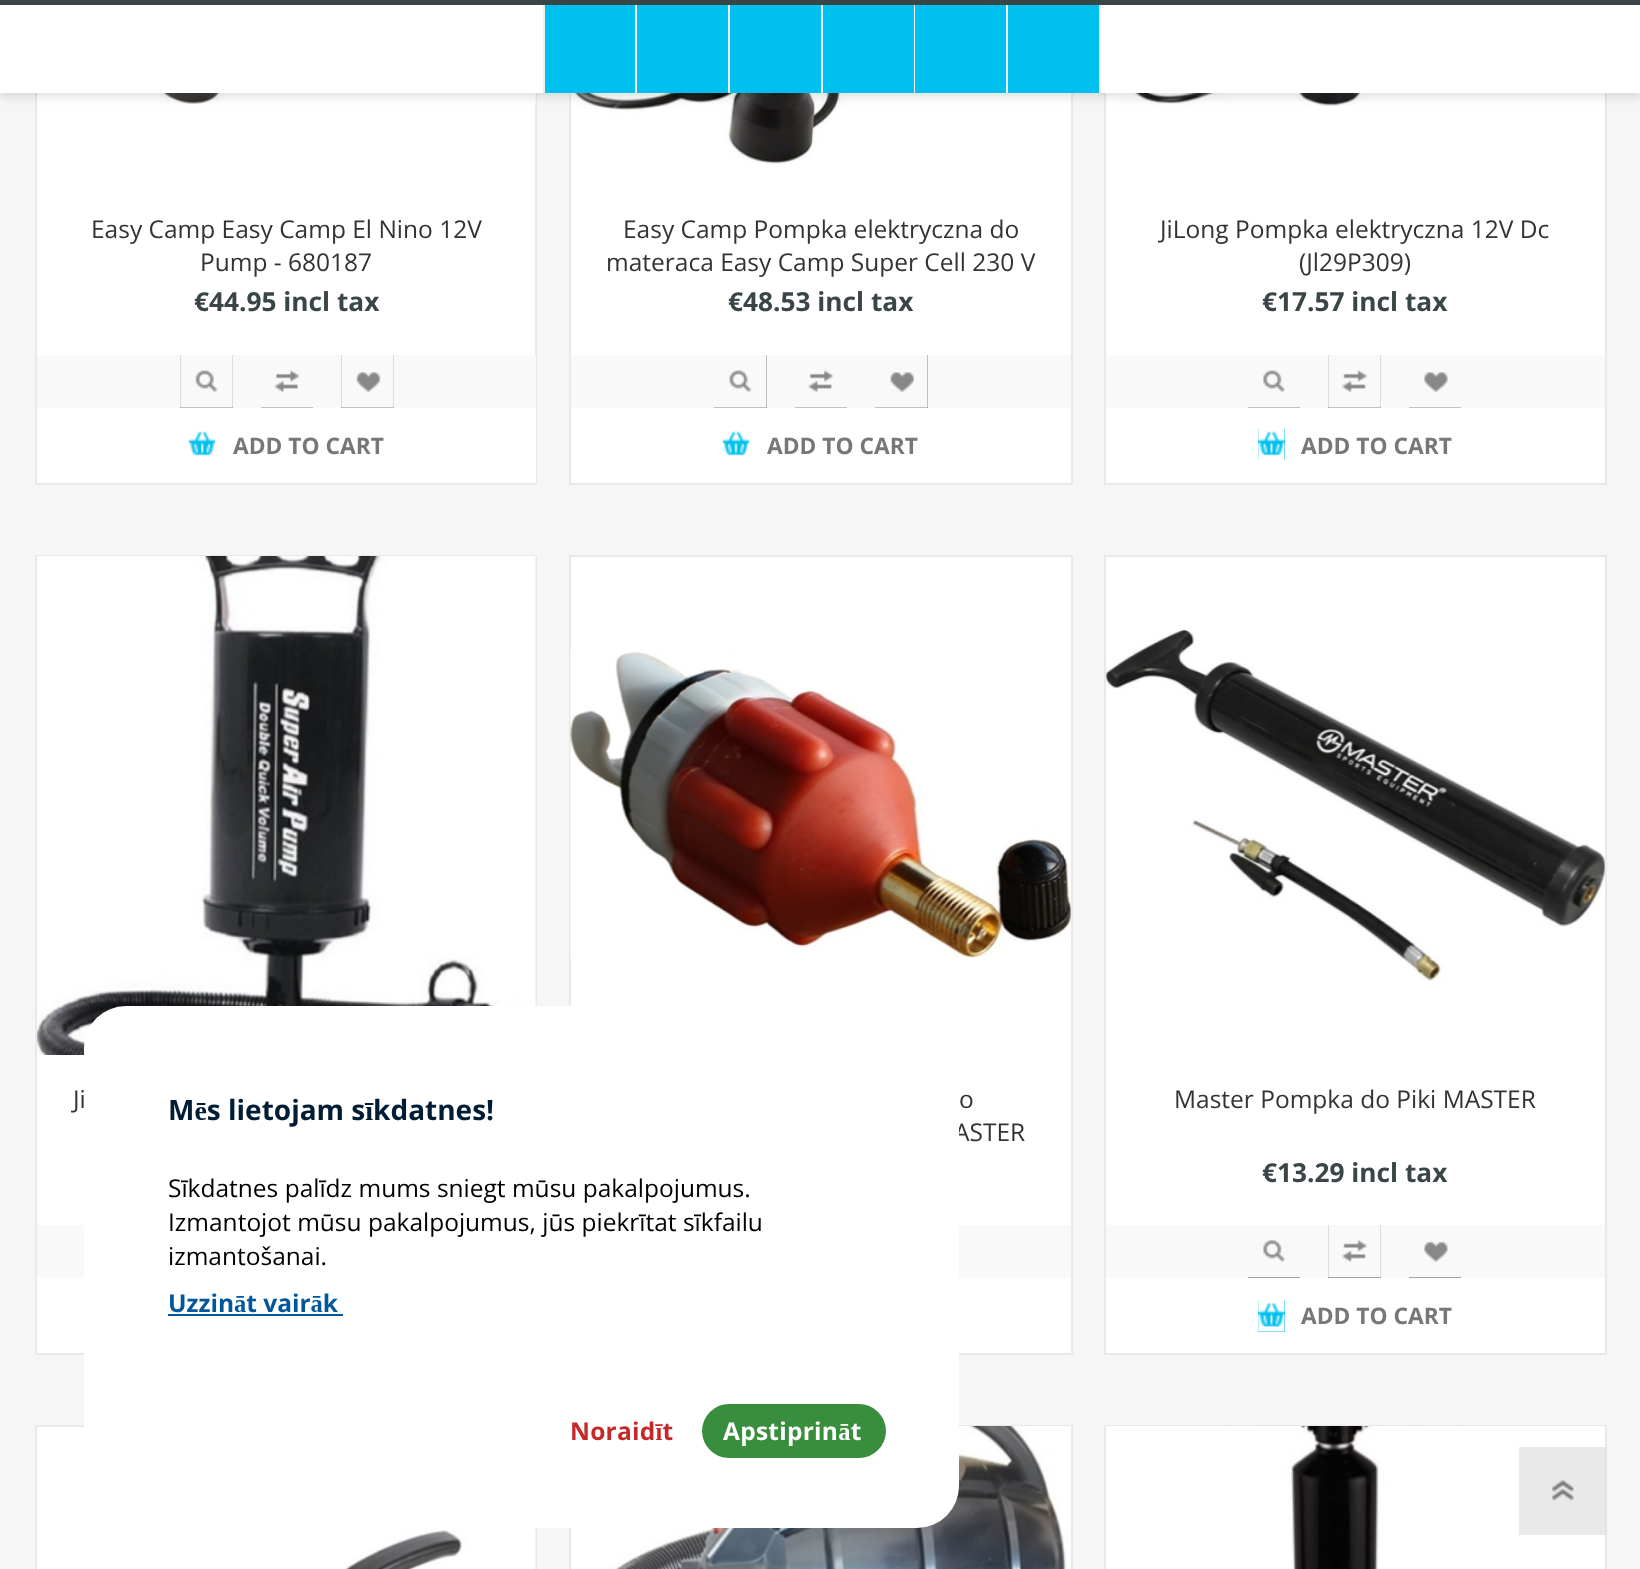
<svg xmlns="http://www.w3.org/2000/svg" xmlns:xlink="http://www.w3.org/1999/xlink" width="1640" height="1569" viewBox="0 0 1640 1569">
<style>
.cls-1{font:24.5px Open Sans;fill:#333333}
.cls-2{font:bold 26.25px Open Sans;fill:#3a4547}
.cls-3{font:bold 22.75px Open Sans;fill:#777777}
.cls-4{font:bold 28px Open Sans;fill:#001d35}
.cls-5{font:24.5px Open Sans;fill:#000000}
.cls-6{font:bold 24.5px Open Sans;fill:#01579b}
.cls-7{font:bold 24.5px Open Sans;letter-spacing:0.25px;fill:#c62828}
.cls-8{font:bold 24.5px Open Sans;letter-spacing:0.25px;fill:#ffffff}
</style>
<rect width="100%" height="100%" fill="#f6f6f6"/>
<rect fill="#ffffff" x="37" y="93" width="498" height="262"/>
<rect fill="none" stroke="#e9e9e9" stroke-width="2" x="36" y="-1" width="500" height="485"/>
<image xlink:href="image0.png" x="37" y="93" width="499" height="11"/>
<rect fill="#ffffff" x="571" y="93" width="500" height="390"/>
<rect fill="none" stroke="#e9e9e9" stroke-width="2" x="570" y="-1" width="502" height="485"/>
<image xlink:href="image5.png" x="571" y="93" width="345" height="71"/>
<rect fill="#ffffff" x="1106" y="93" width="499" height="390"/>
<rect fill="none" stroke="#e9e9e9" stroke-width="2" x="1105" y="-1" width="501" height="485"/>
<image xlink:href="image10.png" x="1106" y="93" width="472" height="13"/>
<rect fill="#000000" fill-opacity="0.1" filter="blur(4.5px)" x="0" y="5" width="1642" height="93"/>
<rect fill="#ffffff" x="0" y="5" width="1640" height="88"/>
<rect fill="#3a4547" x="0" y="0" width="1640" height="5"/>
<rect fill="#00c0ef" x="545" y="5" width="90" height="88"/>
<rect fill="#eeeeee" x="635" y="5" width="2" height="88"/>
<rect fill="#eeeeee" x="543" y="5" width="2" height="88"/>
<rect fill="#00c0ef" x="637" y="5" width="91" height="88"/>
<rect fill="#eeeeee" x="728" y="5" width="2" height="88"/>
<rect fill="#00c0ef" x="730" y="5" width="91" height="88"/>
<rect fill="#eeeeee" x="821" y="5" width="2" height="88"/>
<rect fill="#00c0ef" x="823" y="5" width="91" height="88"/>
<rect fill="#eeeeee" x="914" y="5" width="1" height="88"/>
<rect fill="#00c0ef" x="915" y="5" width="91" height="88"/>
<rect fill="#eeeeee" x="1006" y="5" width="2" height="88"/>
<rect fill="#00c0ef" x="1008" y="5" width="91" height="88"/>
<rect fill="#eeeeee" x="1099" y="5" width="2" height="88"/>
<rect fill="#f9f9f9" x="37" y="355" width="499" height="53"/>
<rect fill="#888888" x="180" y="355" width="53" height="53"/>
<image xlink:href="image1.png" x="180" y="355" width="53" height="53"/>
<rect fill="#888888" x="261" y="370" width="52" height="38"/>
<image xlink:href="image2.png" x="261" y="355" width="52" height="53"/>
<rect fill="#888888" x="341" y="355" width="53" height="53"/>
<image xlink:href="image3.png" x="341" y="355" width="53" height="53"/>
<rect fill="#ffffff" x="37" y="408" width="499" height="75"/>
<rect fill="#00c0ef" x="189" y="431" width="26" height="25"/>
<image xlink:href="image4.png" x="189" y="429" width="26" height="31"/>
<rect fill="#f9f9f9" x="571" y="355" width="500" height="53"/>
<rect fill="#888888" x="714" y="355" width="53" height="53"/>
<image xlink:href="image6.png" x="714" y="355" width="53" height="53"/>
<rect fill="#888888" x="795" y="370" width="52" height="38"/>
<image xlink:href="image7.png" x="795" y="355" width="52" height="53"/>
<rect fill="#888888" x="875" y="355" width="53" height="53"/>
<image xlink:href="image8.png" x="875" y="355" width="53" height="53"/>
<rect fill="#00c0ef" x="723" y="431" width="26" height="25"/>
<image xlink:href="image9.png" x="723" y="429" width="26" height="31"/>
<rect fill="#f9f9f9" x="1106" y="355" width="499" height="53"/>
<rect fill="#888888" x="1248" y="370" width="52" height="38"/>
<image xlink:href="image11.png" x="1248" y="355" width="52" height="53"/>
<rect fill="#888888" x="1328" y="355" width="53" height="53"/>
<image xlink:href="image12.png" x="1328" y="355" width="53" height="53"/>
<rect fill="#888888" x="1409" y="372" width="52" height="36"/>
<image xlink:href="image13.png" x="1409" y="355" width="52" height="53"/>
<rect fill="#00c0ef" x="1258" y="429" width="27" height="31"/>
<image xlink:href="image14.png" x="1258" y="429" width="27" height="31"/>
<rect fill="#ffffff" x="37" y="557" width="498" height="668"/>
<rect fill="none" stroke="#e9e9e9" stroke-width="2" x="36" y="556" width="500" height="798"/>
<image xlink:href="image15.png" x="37" y="556" width="499" height="499"/>
<rect fill="#f9f9f9" x="37" y="1225" width="47" height="53"/>
<rect fill="#ffffff" x="37" y="1278" width="47" height="75"/>
<rect fill="#ffffff" stroke="#e9e9e9" stroke-width="2" x="570" y="556" width="502" height="798"/>
<image xlink:href="image16.png" x="570" y="652" width="501" height="306"/>
<rect fill="#f9f9f9" x="959" y="1225" width="112" height="53"/>
<rect fill="#ffffff" stroke="#e9e9e9" stroke-width="2" x="1105" y="556" width="501" height="798"/>
<image xlink:href="image17.png" x="1106" y="630" width="499" height="351"/>
<rect fill="#f9f9f9" x="1106" y="1225" width="499" height="53"/>
<rect fill="#888888" x="1248" y="1240" width="52" height="38"/>
<image xlink:href="image18.png" x="1248" y="1225" width="52" height="53"/>
<rect fill="#888888" x="1328" y="1225" width="53" height="53"/>
<image xlink:href="image19.png" x="1328" y="1225" width="53" height="53"/>
<rect fill="#888888" x="1409" y="1241" width="52" height="37"/>
<image xlink:href="image20.png" x="1409" y="1225" width="52" height="53"/>
<rect fill="#00c0ef" x="1258" y="1300" width="27" height="32"/>
<image xlink:href="image21.png" x="1258" y="1300" width="27" height="32"/>
<rect fill="#ffffff" stroke="#e9e9e9" stroke-width="2" x="36" y="1426" width="500" height="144"/>
<image xlink:href="image22.png" x="345" y="1530" width="191" height="39"/>
<rect fill="none" stroke="#e9e9e9" stroke-width="2" x="570" y="1426" width="502" height="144"/>
<image xlink:href="image23.png" x="571" y="1426" width="500" height="143"/>
<rect fill="#ffffff" stroke="#e9e9e9" stroke-width="2" x="1105" y="1426" width="501" height="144"/>
<image xlink:href="image24.png" x="1106" y="1426" width="499" height="143"/>
<rect fill="#e1e1e1" fill-opacity="0.75" x="1519" y="1447" width="88" height="88"/>
<image xlink:href="image25.png" x="1551" y="1480" width="23" height="21"/>
<text class="cls-1" x="91" y="238">Easy Camp Easy Camp El Nino 12V</text>
<text class="cls-1" x="200" y="271">Pump - 680187</text>
<text class="cls-2" x="194" y="311">€44.95 incl tax</text>
<text class="cls-3" x="233" y="454">ADD TO CART</text>
<text class="cls-1" x="623" y="238">Easy Camp Pompka elektryczna do</text>
<text class="cls-1" x="606" y="271">materaca Easy Camp Super Cell 230 V</text>
<text class="cls-2" x="728" y="311">€48.53 incl tax</text>
<text class="cls-3" x="767" y="454">ADD TO CART</text>
<text class="cls-1" x="1160" y="238">JiLong Pompka elektryczna 12V Dc</text>
<text class="cls-1" x="1299" y="271">(Jl29P309)</text>
<text class="cls-2" x="1262" y="311">€17.57 incl tax</text>
<text class="cls-3" x="1301" y="454">ADD TO CART</text>
<text class="cls-1" x="73" y="1108">Ji</text>
<text class="cls-1" x="959" y="1108">o</text>
<text class="cls-1" x="954" y="1141">ASTER</text>
<text class="cls-1" x="1174" y="1108">Master Pompka do Piki MASTER</text>
<text class="cls-2" x="1262" y="1182">€13.29 incl tax</text>
<text class="cls-3" x="1301" y="1324">ADD TO CART</text>
<rect fill="#ffffff" x="84" y="1006" width="875" height="522" rx="42"/>
<text class="cls-4" x="168" y="1120">Mēs lietojam sīkdatnes!</text>
<text class="cls-5"><tspan x="168" y="1197">Sīkdatnes palīdz mums sniegt mūsu pakalpojumus.</tspan><tspan x="168" y="1231">Izmantojot mūsu pakalpojumus, jūs piekrītat sīkfailu</tspan><tspan x="168" y="1265">izmantošanai.</tspan></text>
<text class="cls-6" x="168" y="1312">Uzzināt vairāk</text>
<rect fill="#01579b" x="168" y="1314" width="175" height="2"/>
<text class="cls-7" x="570" y="1440">Noraidīt</text>
<rect fill="#388e3c" x="702" y="1404" width="184" height="54" rx="27"/>
<text class="cls-8" x="723" y="1440">Apstiprināt</text>
</svg>
